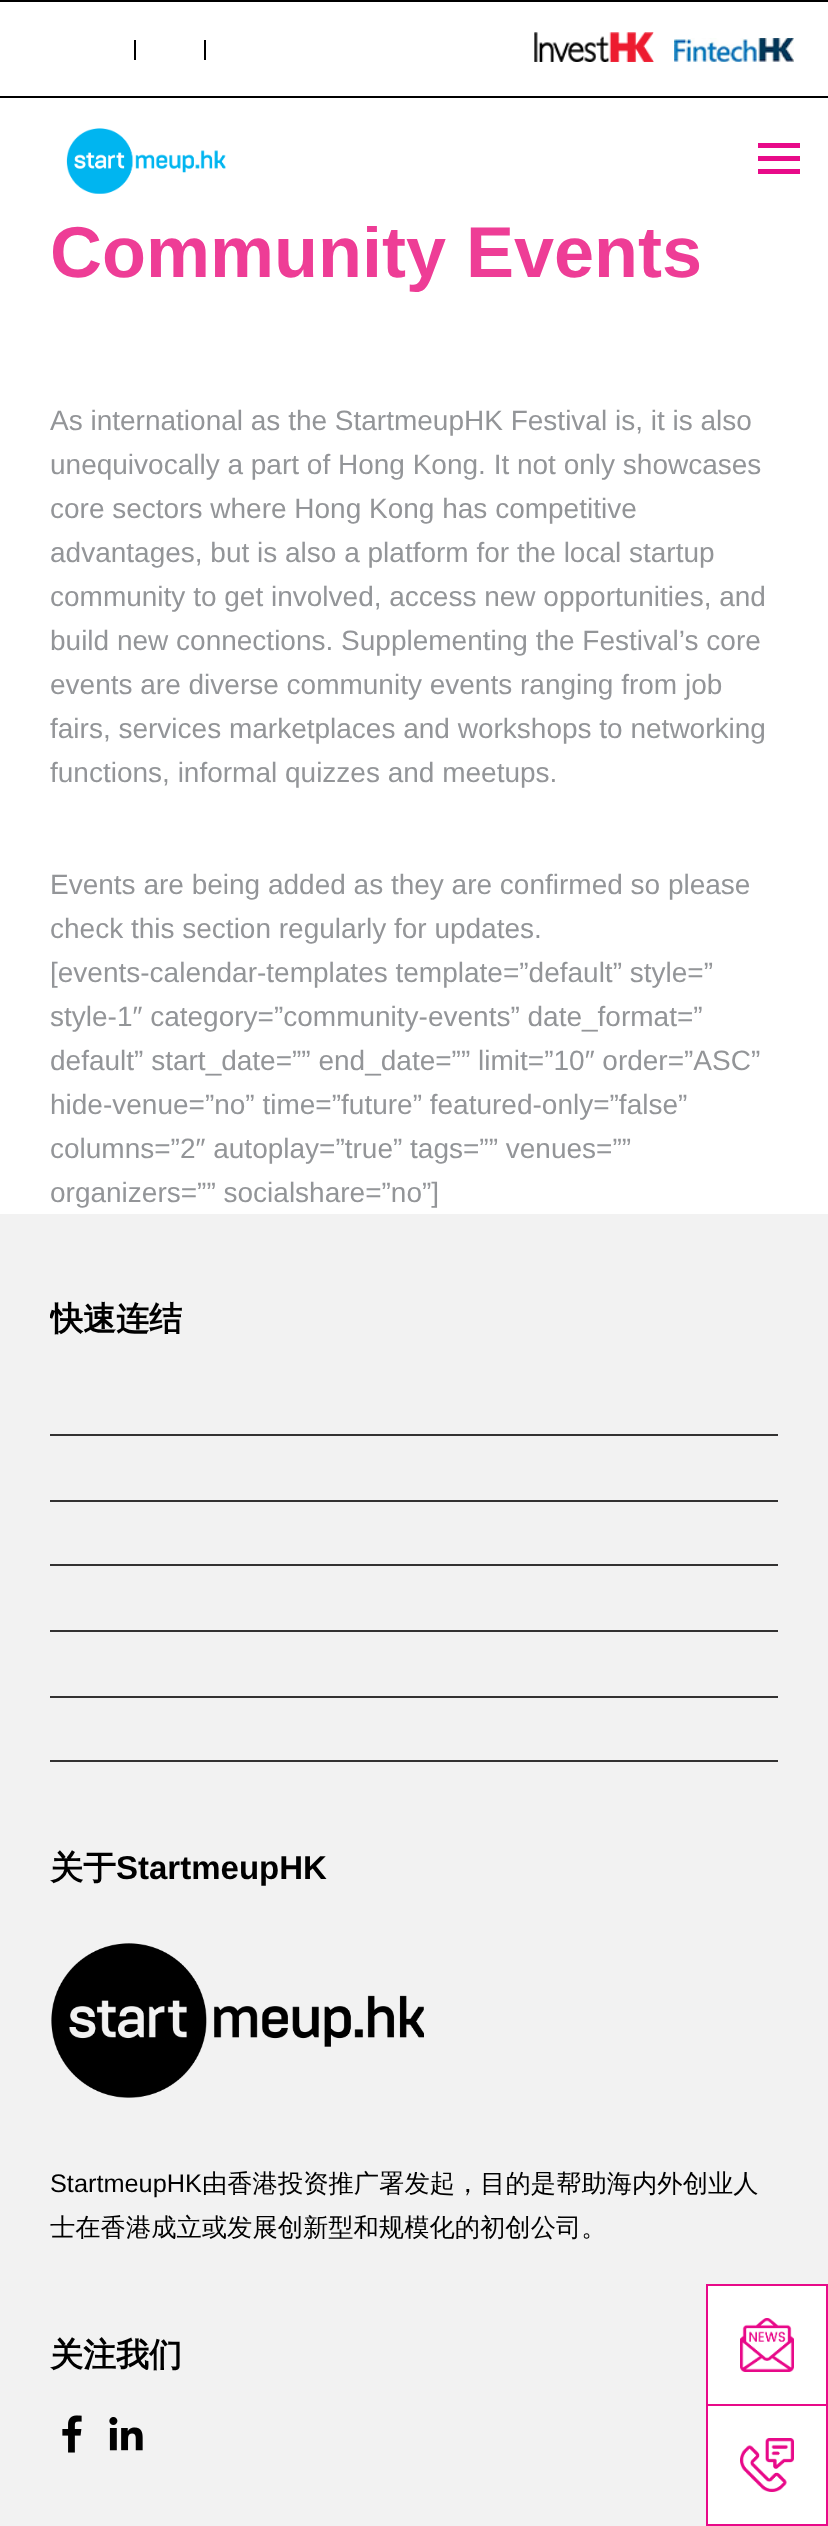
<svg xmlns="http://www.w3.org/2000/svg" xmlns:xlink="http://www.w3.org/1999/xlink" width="828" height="2526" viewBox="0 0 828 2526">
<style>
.cls-1{font:bold 72px Liberation Sans;fill:#ee3d96}
.cls-2{font:28px Liberation Sans;fill:#939598}
.cls-3{font:bold 33px WenQuanYi Zen Hei;fill:#000000}
.cls-4{font:bold 33px Liberation Sans;fill:#000000}
.cls-5{font:25.3px Liberation Sans;fill:#000000}
.cls-6{font:500 25.3px WenQuanYi Zen Hei;fill:#000000}
</style>
<defs>
<clipPath id="clip1"><rect x="50" y="1214" width="728" height="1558"/></clipPath>
</defs>
<rect width="100%" height="100%" fill="#ffffff"/>
<rect fill="#000000" x="0" y="0" width="828" height="2"/>
<rect fill="#000000" x="0" y="96" width="828" height="2"/>
<rect fill="#000000" x="134" y="40" width="2" height="20"/>
<rect fill="#000000" x="204" y="40" width="2" height="20"/>
<image xlink:href="image0.png" x="534" y="32" width="120" height="30"/>
<image xlink:href="image1.png" x="674" y="38" width="120" height="24"/>
<image xlink:href="image2.png" x="66" y="128" width="160" height="66"/>
<path fill="#e80a89" d="M758 174V169H800V174ZM758 143H800V148H758ZM758 161V156H800V161Z"/>
<rect fill="#f2f2f2" x="0" y="1214" width="828" height="1312"/>
<rect fill="#333232" x="50" y="1434" width="728" height="2"/>
<rect fill="#333232" x="50" y="1500" width="728" height="2"/>
<rect fill="#333232" x="50" y="1564" width="728" height="2"/>
<rect fill="#333232" x="50" y="1630" width="728" height="2"/>
<rect fill="#333232" x="50" y="1696" width="728" height="2"/>
<rect fill="#333232" x="50" y="1760" width="728" height="2"/>
<image xlink:href="image3.png" x="51" y="1943" width="373" height="155"/>
<image xlink:href="image4.png" x="62" y="2415" width="20" height="38"/>
<image xlink:href="image5.png" x="109" y="2417" width="34" height="34"/>
<rect fill="#ffffff" x="708" y="2286" width="118" height="118"/>
<rect fill="#e80a89" x="706" y="2284" width="122" height="2"/>
<rect fill="#e80a89" x="826" y="2284" width="2" height="120"/>
<rect fill="#e80a89" x="706" y="2284" width="2" height="120"/>
<image xlink:href="image6.png" x="740" y="2318" width="54" height="54"/>
<rect fill="#ffffff" stroke="#e80a89" stroke-width="2" x="707" y="2405" width="120" height="120"/>
<image xlink:href="image7.png" x="740" y="2438" width="54" height="54"/>
<text class="cls-1" x="50" y="277">Community Events</text>
<rect fill="#ffffff" x="366" y="224" width="11" height="2"/>
<text class="cls-2"><tspan x="50" y="430">As international as the StartmeupHK Festival is, it is also</tspan><tspan x="50" y="474">unequivocally a part of Hong Kong. It not only showcases</tspan><tspan x="50" y="518">core sectors where Hong Kong has competitive</tspan><tspan x="50" y="562">advantages, but is also a platform for the local startup</tspan><tspan x="50" y="606">community to get involved, access new opportunities, and</tspan><tspan x="50" y="650">build new connections. Supplementing the Festival’s core</tspan><tspan x="50" y="694">events are diverse community events ranging from job</tspan><tspan x="50" y="738">fairs, services marketplaces and workshops to networking</tspan><tspan x="50" y="782">functions, informal quizzes and meetups.</tspan></text>
<text class="cls-2"><tspan x="50" y="894">Events are being added as they are confirmed so please</tspan><tspan x="50" y="938">check this section regularly for updates.</tspan><tspan x="50" y="982">[events-calendar-templates template=”default” style=”</tspan><tspan x="50" y="1026">style-1″ category=”community-events” date_format=”</tspan><tspan x="50" y="1070">default” start_date=”” end_date=”” limit=”10″ order=”ASC”</tspan><tspan x="50" y="1114">hide-venue=”no” time=”future” featured-only=”false”</tspan><tspan x="50" y="1158">columns=”2″ autoplay=”true” tags=”” venues=””</tspan><tspan x="50" y="1202">organizers=”” socialshare=”no”]</tspan></text>
<g clip-path="url(#clip1)">
<text class="cls-3" x="50" y="1330">快速连结</text>
</g>
<text class="cls-3" x="50" y="1879">关于</text>
<text class="cls-4" x="116" y="1879">StartmeupHK</text>
<text class="cls-5" x="50" y="2192">StartmeupHK</text>
<text class="cls-6" x="202" y="2192">由香港投资推广署发起，目的是帮助海内外创业人</text>
<text class="cls-6" x="50" y="2236">士在香港成立或发展创新型和规模化的初创公司。</text>
<text class="cls-3" x="50" y="2366">关注我们</text>
</svg>
